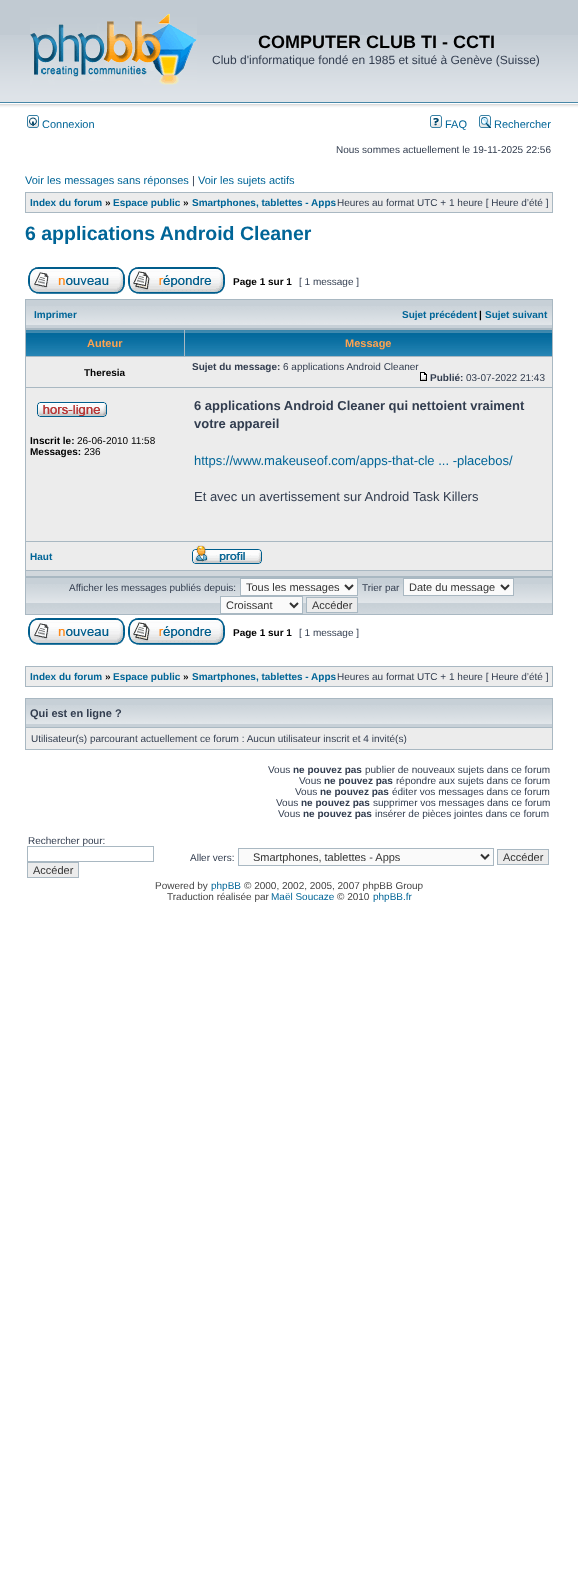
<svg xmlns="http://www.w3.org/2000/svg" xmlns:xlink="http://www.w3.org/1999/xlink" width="578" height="1576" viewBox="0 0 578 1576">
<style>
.cls-1{font:bold 18px Liberation Sans;fill:#000000}
.cls-2{font:12px Liberation Sans;fill:#323d4f}
.cls-3{font:11px Liberation Sans;fill:#006597}
.cls-4{font:10px Liberation Sans;fill:#323d4f}
.cls-5{font:11px Liberation Sans;fill:#323d4f}
.cls-6{font:bold 10px Liberation Sans;fill:#006597}
.cls-7{font:bold 10px Liberation Sans;fill:#000000}
.cls-8{font:bold 19.5px Liberation Sans;fill:#006597}
.cls-9{font:bold 11px Liberation Sans;fill:#ffa34f}
.cls-10{font:bold 10px Liberation Sans;fill:#323d4f}
.cls-11{font:10px Liberation Sans;fill:#000000}
.cls-12{font:bold 13px Liberation Sans;fill:#323d4f}
.cls-13{font:13px Liberation Sans;fill:#006597}
.cls-14{font:13px Liberation Sans;fill:#323d4f}
.cls-15{font:11px Liberation Sans;fill:#333333}
.cls-16{font:bold 11px Liberation Sans;fill:#323d4f}
.cls-17{font:10px Liberation Sans;fill:#444444}
.cls-18{font:10px Liberation Sans;fill:#006597}
</style>
<rect width="100%" height="100%" fill="#ffffff"/>
<rect fill="#c1cad2" x="0" y="0" width="578" height="35"/>
<image xlink:href="image0.png" x="0" y="35" width="578" height="78"/>
<image xlink:href="image1.png" x="30" y="14" width="167" height="71"/>
<image xlink:href="image2.png" x="27" y="115" width="12" height="13"/>
<image xlink:href="image3.png" x="430" y="115" width="12" height="13"/>
<image xlink:href="image4.png" x="479" y="115" width="12" height="13"/>
<rect fill="#a9b8c2" x="25" y="192" width="528" height="21"/>
<rect fill="#ececec" x="26" y="193" width="526" height="19"/>
<image xlink:href="image5.png" x="28" y="267" width="97" height="27"/>
<image xlink:href="image6.png" x="128" y="267" width="97" height="27"/>
<rect fill="#a9b8c2" x="25" y="299" width="528" height="316"/>
<rect fill="#c7d0d7" x="26" y="300" width="526" height="28"/>
<image xlink:href="image7.png" x="26" y="306" width="526" height="19"/>
<image xlink:href="image8.png" x="26" y="330" width="158" height="26"/>
<image xlink:href="image9.png" x="185" y="330" width="367" height="26"/>
<rect fill="#ececec" x="26" y="357" width="526" height="30"/>
<image xlink:href="image10.png" x="420" y="372" width="7" height="9"/>
<rect fill="#ececec" x="26" y="388" width="526" height="153"/>
<image xlink:href="image11.png" x="37" y="402" width="70" height="15"/>
<rect fill="#ececec" x="26" y="542" width="526" height="28"/>
<image xlink:href="image12.png" x="192" y="545" width="70" height="19"/>
<rect fill="#d1d7dc" x="26" y="571" width="526" height="5"/>
<rect fill="#c7d0d7" x="26" y="578" width="526" height="6"/>
<image xlink:href="image13.png" x="26" y="584" width="526" height="30"/>
<rect fill="#fafafa" stroke="#a9b8c2" x="240.5" y="578.5" width="117" height="17"/>
<path fill="none" stroke="#333333" stroke-width="2" d="M345 585L349 589L353 585"/>
<rect fill="#fafafa" stroke="#a9b8c2" x="403.5" y="578.5" width="110" height="17"/>
<path fill="none" stroke="#333333" stroke-width="2" d="M501 585L505 589L509 585"/>
<rect fill="#fafafa" stroke="#a9b8c2" x="220.5" y="596.5" width="82" height="17"/>
<path fill="none" stroke="#333333" stroke-width="2" d="M290 603L294 607L298 603"/>
<rect fill="#ececec" stroke="#a9b8c2" x="306.5" y="597.5" width="51" height="15"/>
<image xlink:href="image5.png" x="28" y="618" width="97" height="27"/>
<image xlink:href="image6.png" x="128" y="618" width="97" height="27"/>
<rect fill="#a9b8c2" x="25" y="666" width="528" height="21"/>
<rect fill="#ececec" x="26" y="667" width="526" height="19"/>
<rect fill="#a9b8c2" x="25" y="698" width="528" height="52"/>
<rect fill="#c7d0d7" x="26" y="699" width="526" height="28"/>
<image xlink:href="image7.png" x="26" y="705" width="526" height="19"/>
<rect fill="#ececec" x="26" y="728" width="526" height="21"/>
<rect fill="#ececec" stroke="#a9b8c2" x="27.5" y="862.5" width="51" height="15"/>
<rect fill="#fafafa" stroke="#a9b8c2" x="238.5" y="848.5" width="255" height="17"/>
<path fill="none" stroke="#333333" stroke-width="2" d="M481 854.5L485 858.5L489 854.5"/>
<rect fill="#ececec" stroke="#a9b8c2" x="497.5" y="849.5" width="51" height="15"/>
<text class="cls-1" x="258" y="48">COMPUTER CLUB TI - CCTI</text>
<text class="cls-2" x="212" y="64">Club d'informatique fondé en 1985 et situé à Genève (Suisse)</text>
<text class="cls-3" x="42" y="128">Connexion</text>
<text class="cls-3" x="445" y="128">FAQ</text>
<text class="cls-3" x="494" y="128">Rechercher</text>
<text class="cls-4" x="336" y="153">Nous sommes actuellement le 19-11-2025 22:56</text>
<text class="cls-3" x="25" y="184">Voir les messages sans réponses</text>
<text class="cls-5" x="192" y="184">|</text>
<text class="cls-3" x="198" y="184">Voir les sujets actifs</text>
<text class="cls-6" x="30" y="206">Index du forum</text>
<text class="cls-7" x="105" y="206">»</text>
<text class="cls-6" x="113" y="206">Espace public</text>
<text class="cls-7" x="183" y="206">»</text>
<text class="cls-6" x="192" y="206">Smartphones, tablettes - Apps</text>
<text class="cls-4" x="337" y="206">Heures au format UTC + 1 heure [ Heure d’été ]</text>
<text class="cls-8" x="25" y="240">6 applications Android Cleaner</text>
<text class="cls-7" x="233" y="285">Page 1 sur 1</text>
<text class="cls-4" x="299" y="285">[ 1 message ]</text>
<text class="cls-6" x="34" y="318">Imprimer</text>
<text class="cls-6" x="402" y="318">Sujet précédent</text>
<text class="cls-7" x="479" y="318">|</text>
<text class="cls-6" x="485" y="318">Sujet suivant</text>
<text class="cls-9" x="87" y="347">Auteur</text>
<text class="cls-9" x="345" y="347">Message</text>
<text class="cls-7" x="84" y="376">Theresia</text>
<text class="cls-10" x="192" y="370">Sujet du message:</text>
<text class="cls-4" x="283" y="370">6 applications Android Cleaner</text>
<text class="cls-10" x="430" y="381">Publié:</text>
<text class="cls-4" x="466" y="381">03-07-2022 21:43</text>
<text class="cls-7" x="30" y="444">Inscrit le:</text>
<text class="cls-11" x="77" y="444">26-06-2010 11:58</text>
<text class="cls-7" x="30" y="455">Messages:</text>
<text class="cls-11" x="84" y="455">236</text>
<text class="cls-12"><tspan x="194" y="410">6 applications Android Cleaner qui nettoient vraiment</tspan><tspan x="194" y="428">votre appareil</tspan></text>
<text class="cls-13" x="194" y="465">https://www.makeuseof.com/apps-that-cle ... -placebos/</text>
<text class="cls-14" x="194" y="501">Et avec un avertissement sur Android Task Killers</text>
<text class="cls-6" x="30" y="560">Haut</text>
<text class="cls-4" x="69" y="591">Afficher les messages publiés depuis:</text>
<text class="cls-15" x="246" y="591">Tous les messages</text>
<text class="cls-4" x="362" y="591">Trier par</text>
<text class="cls-15" x="409" y="591">Date du message</text>
<text class="cls-15" x="226" y="609">Croissant</text>
<text class="cls-15" x="312" y="609">Accéder</text>
<text class="cls-7" x="233" y="636">Page 1 sur 1</text>
<text class="cls-4" x="299" y="636">[ 1 message ]</text>
<text class="cls-6" x="30" y="680">Index du forum</text>
<text class="cls-7" x="105" y="680">»</text>
<text class="cls-6" x="113" y="680">Espace public</text>
<text class="cls-7" x="183" y="680">»</text>
<text class="cls-6" x="192" y="680">Smartphones, tablettes - Apps</text>
<text class="cls-4" x="337" y="680">Heures au format UTC + 1 heure [ Heure d’été ]</text>
<text class="cls-16" x="30" y="717">Qui est en ligne ?</text>
<text class="cls-4" x="31" y="742">Utilisateur(s) parcourant actuellement ce forum : Aucun utilisateur inscrit et 4 invité(s)</text>
<text class="cls-4" x="268" y="773">Vous</text>
<text class="cls-10" x="293" y="773">ne pouvez pas</text>
<text class="cls-4" x="365" y="773">publier de nouveaux sujets dans ce forum</text>
<text class="cls-4" x="299" y="784">Vous</text>
<text class="cls-10" x="324" y="784">ne pouvez pas</text>
<text class="cls-4" x="396" y="784">répondre aux sujets dans ce forum</text>
<text class="cls-4" x="295" y="795">Vous</text>
<text class="cls-10" x="320" y="795">ne pouvez pas</text>
<text class="cls-4" x="392" y="795">éditer vos messages dans ce forum</text>
<text class="cls-4" x="276" y="806">Vous</text>
<text class="cls-10" x="301" y="806">ne pouvez pas</text>
<text class="cls-4" x="373" y="806">supprimer vos messages dans ce forum</text>
<text class="cls-4" x="278" y="817">Vous</text>
<text class="cls-10" x="303" y="817">ne pouvez pas</text>
<text class="cls-4" x="375" y="817">insérer de pièces jointes dans ce forum</text>
<text class="cls-4" x="28" y="844">Rechercher pour:</text>
<rect fill="none" stroke="#a9b8c2" x="27.5" y="846.5" width="126" height="15"/>
<text class="cls-15" x="33" y="874">Accéder</text>
<text class="cls-4" x="190" y="861">Aller vers:</text>
<text class="cls-15" x="253" y="861">Smartphones, tablettes - Apps</text>
<text class="cls-15" x="503" y="861">Accéder</text>
<text class="cls-17" x="155" y="889">Powered by</text>
<text class="cls-18" x="211" y="889">phpBB</text>
<text class="cls-17" x="244" y="889">© 2000, 2002, 2005, 2007 phpBB Group</text>
<text class="cls-17" x="167" y="900">Traduction réalisée par</text>
<text class="cls-18" x="271" y="900">Maël Soucaze</text>
<text class="cls-17" x="337" y="900">© 2010</text>
<text class="cls-18" x="373" y="900">phpBB.fr</text>
</svg>
